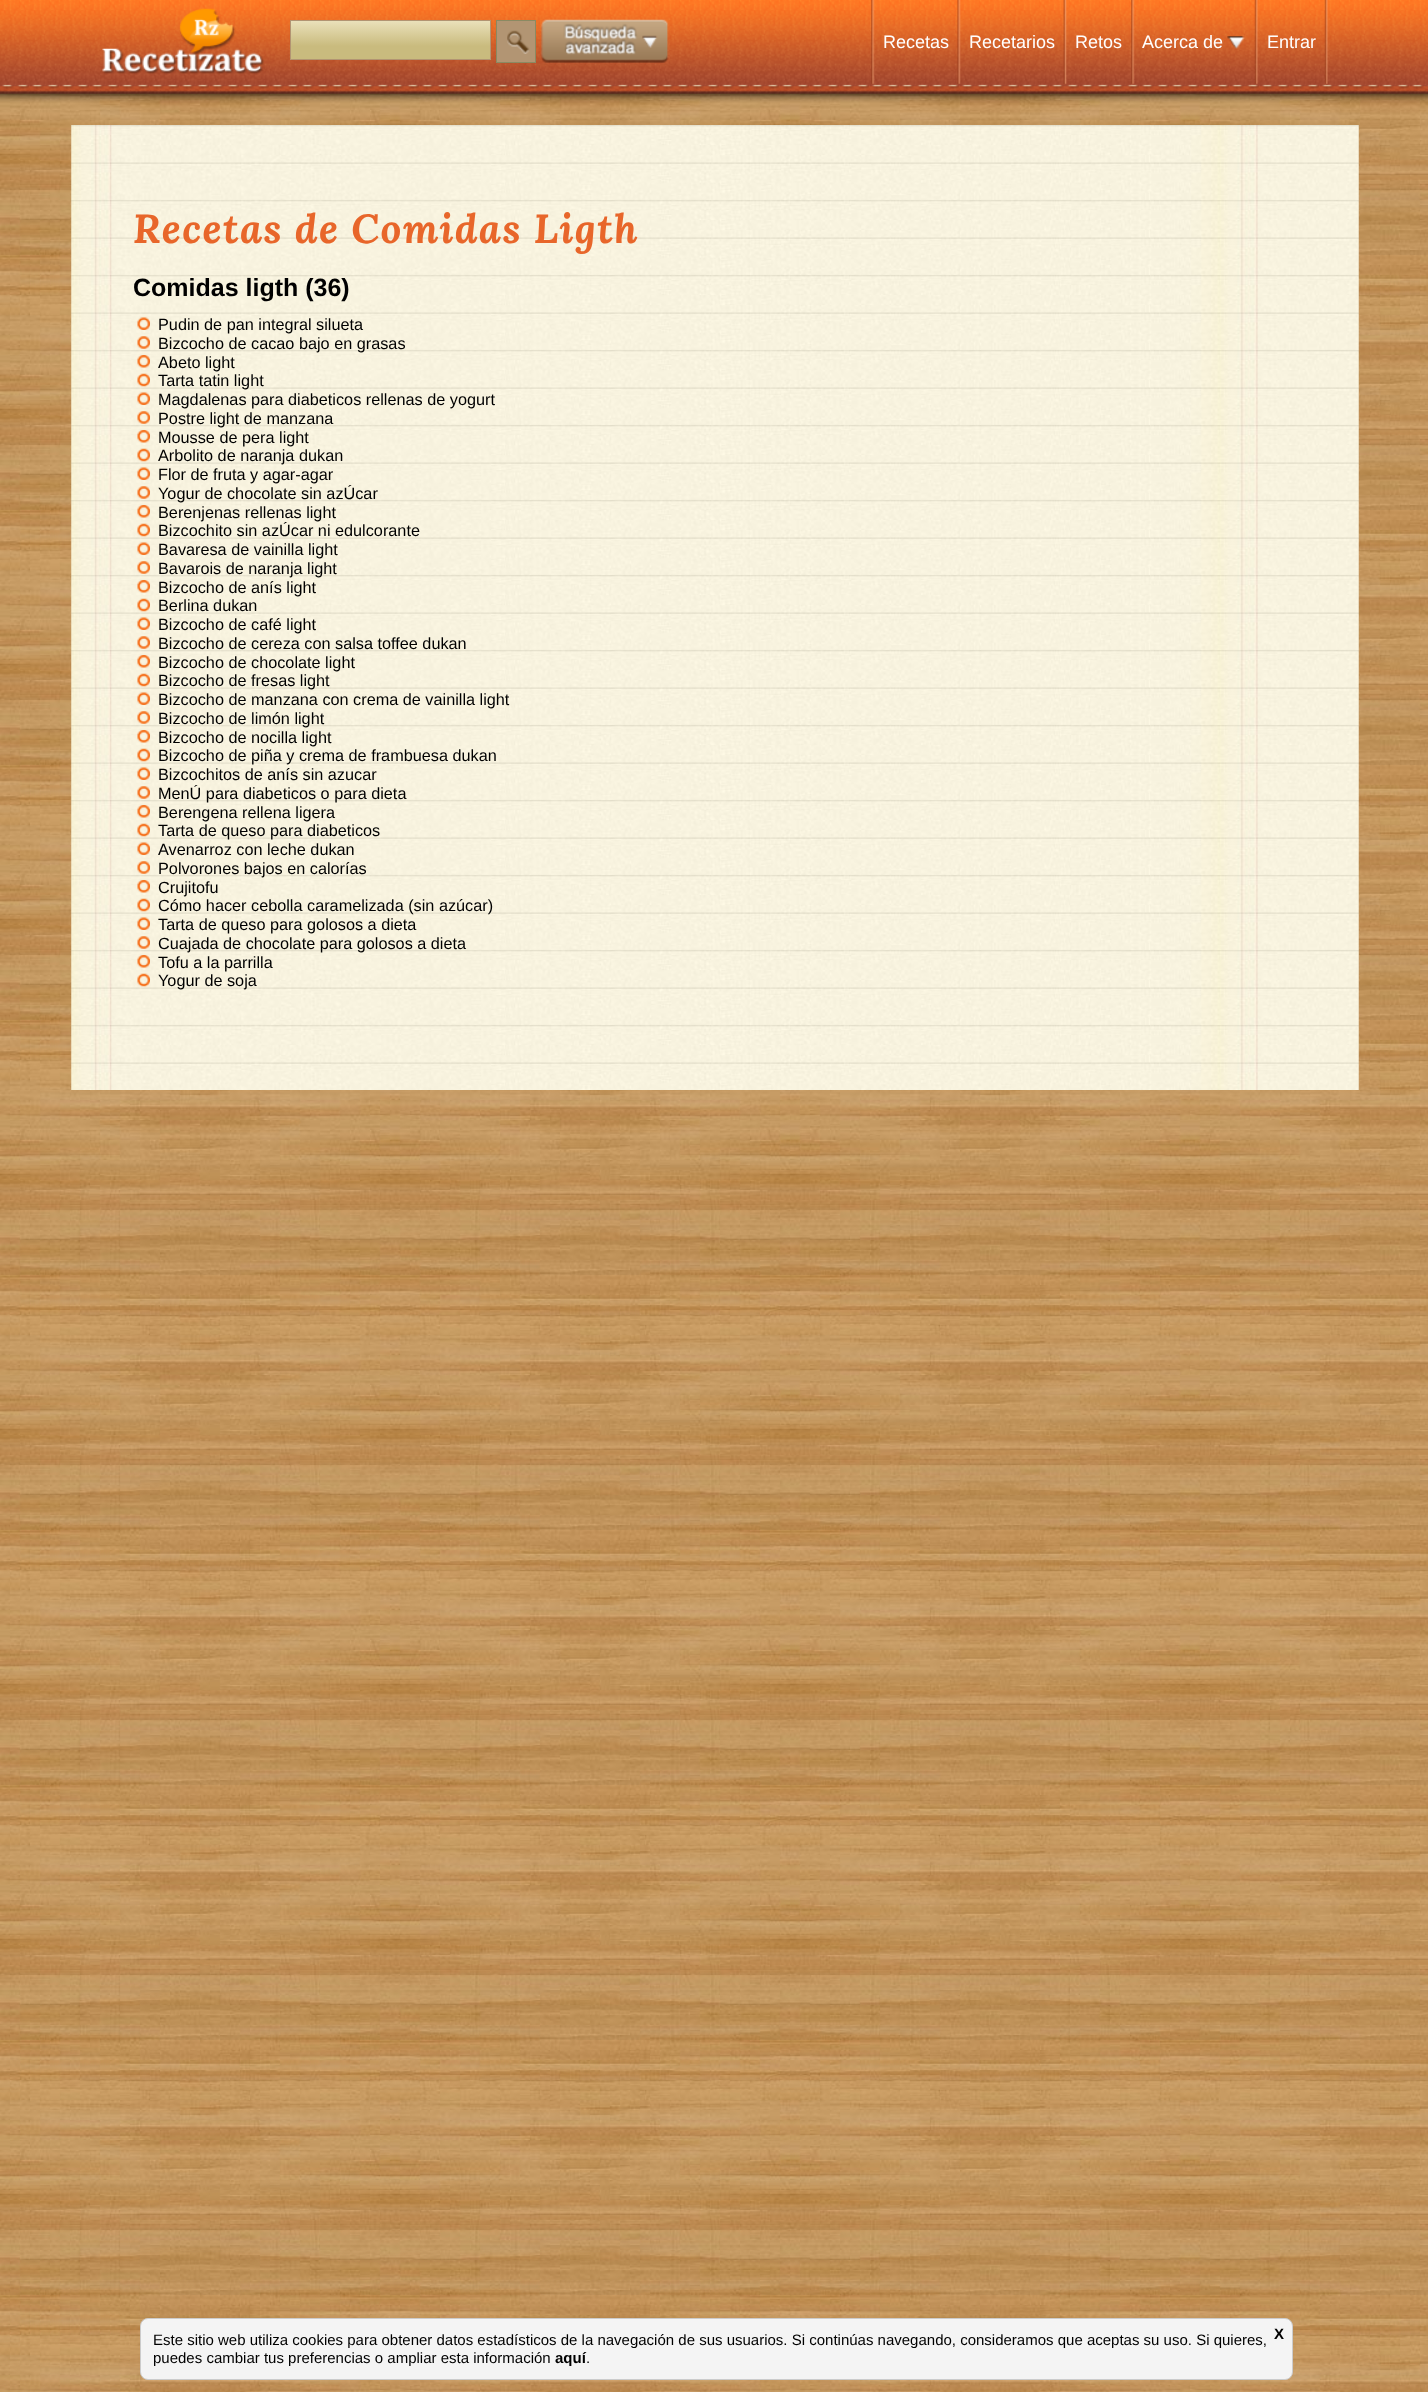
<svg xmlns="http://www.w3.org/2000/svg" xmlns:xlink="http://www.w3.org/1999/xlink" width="1428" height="2392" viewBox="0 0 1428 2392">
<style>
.cls-1{font:18px Liberation Sans;fill:#ffffff}
.cls-2{font:italic bold 40.6px Lora;letter-spacing:1.25px;fill:#e8662a}
.cls-3{font:bold 25px Liberation Sans;fill:#000000}
.cls-4{font:16.25px Liberation Sans;fill:#000000}
.cls-5{font:15px Liberation Sans;fill:#000000}
.cls-6{font:bold 15px Liberation Sans;fill:#000000}
</style>
<defs>
<linearGradient id="g1" gradientUnits="userSpaceOnUse" x1="291" y1="59" x2="291" y2="21"><stop offset="0.34" stop-color="#c9bb7e"/><stop offset="1" stop-color="#eae1ba"/></linearGradient>
</defs>
<rect width="100%" height="100%" fill="#ffffff"/>
<image xlink:href="image0.png" x="0" y="93" width="1428" height="2299"/>
<image xlink:href="image1.png" x="0" y="0" width="1428" height="103"/>
<image xlink:href="image2.png" x="102" y="8" width="162" height="66"/>
<rect fill="url(#g1)" x="291" y="21" width="199" height="38"/>
<rect fill="none" stroke="#b29472" x="290.5" y="20.5" width="200" height="39"/>
<rect fill="#b29573" stroke="#8a8a62" x="496.5" y="20.5" width="39" height="42"/>
<image xlink:href="image3.png" x="507" y="30" width="23" height="24"/>
<image xlink:href="image4.png" x="541" y="19" width="128" height="44"/>
<image xlink:href="image5.png" x="871" y="0" width="4" height="84"/>
<image xlink:href="image6.png" x="957" y="0" width="4" height="84"/>
<image xlink:href="image7.png" x="1063" y="0" width="4" height="84"/>
<image xlink:href="image8.png" x="1131" y="0" width="4" height="84"/>
<image xlink:href="image9.png" x="1227" y="36" width="18" height="13"/>
<image xlink:href="image10.png" x="1254" y="0" width="4" height="84"/>
<image xlink:href="image11.png" x="1324" y="0" width="4" height="84"/>
<image xlink:href="image12.png" x="71" y="125" width="1288" height="965"/>
<image xlink:href="image13.png" x="137" y="317" width="13" height="13"/>
<image xlink:href="image14.png" x="137" y="336" width="13" height="13"/>
<image xlink:href="image15.png" x="137" y="355" width="13" height="13"/>
<image xlink:href="image16.png" x="137" y="373" width="13" height="14"/>
<image xlink:href="image13.png" x="137" y="392" width="13" height="13"/>
<image xlink:href="image17.png" x="137" y="411" width="13" height="13"/>
<image xlink:href="image15.png" x="137" y="430" width="13" height="13"/>
<image xlink:href="image16.png" x="137" y="448" width="13" height="14"/>
<image xlink:href="image13.png" x="137" y="467" width="13" height="13"/>
<image xlink:href="image17.png" x="137" y="486" width="13" height="13"/>
<image xlink:href="image15.png" x="137" y="505" width="13" height="13"/>
<image xlink:href="image16.png" x="137" y="523" width="13" height="14"/>
<image xlink:href="image13.png" x="137" y="542" width="13" height="13"/>
<image xlink:href="image17.png" x="137" y="561" width="13" height="13"/>
<image xlink:href="image15.png" x="137" y="580" width="13" height="13"/>
<image xlink:href="image16.png" x="137" y="598" width="13" height="14"/>
<image xlink:href="image13.png" x="137" y="617" width="13" height="13"/>
<image xlink:href="image17.png" x="137" y="636" width="13" height="13"/>
<image xlink:href="image15.png" x="137" y="655" width="13" height="13"/>
<image xlink:href="image16.png" x="137" y="673" width="13" height="14"/>
<image xlink:href="image13.png" x="137" y="692" width="13" height="13"/>
<image xlink:href="image17.png" x="137" y="711" width="13" height="13"/>
<image xlink:href="image15.png" x="137" y="730" width="13" height="13"/>
<image xlink:href="image16.png" x="137" y="748" width="13" height="14"/>
<image xlink:href="image13.png" x="137" y="767" width="13" height="13"/>
<image xlink:href="image17.png" x="137" y="786" width="13" height="13"/>
<image xlink:href="image15.png" x="137" y="805" width="13" height="13"/>
<image xlink:href="image16.png" x="137" y="823" width="13" height="14"/>
<image xlink:href="image13.png" x="137" y="842" width="13" height="13"/>
<image xlink:href="image17.png" x="137" y="861" width="13" height="13"/>
<image xlink:href="image15.png" x="137" y="880" width="13" height="13"/>
<image xlink:href="image16.png" x="137" y="898" width="13" height="14"/>
<image xlink:href="image13.png" x="137" y="917" width="13" height="13"/>
<image xlink:href="image17.png" x="137" y="936" width="13" height="13"/>
<image xlink:href="image15.png" x="137" y="955" width="13" height="13"/>
<image xlink:href="image16.png" x="137" y="973" width="13" height="14"/>
<rect fill="#f4f4f4" stroke="#cccccc" x="140.5" y="2318.5" width="1152" height="61" rx="7.5"/>
<text class="cls-1" x="883" y="48">Recetas</text>
<text class="cls-1" x="969" y="48">Recetarios</text>
<text class="cls-1" x="1075" y="48">Retos</text>
<text class="cls-1" x="1142" y="48">Acerca de</text>
<text class="cls-1" x="1267" y="48">Entrar</text>
<text class="cls-2" x="133" y="243">Recetas de Comidas Ligth</text>
<text class="cls-3" x="133" y="296">Comidas ligth (36)</text>
<text class="cls-4"><tspan x="158" y="330">Pudin de pan integral silueta</tspan><tspan x="158" y="349">Bizcocho de cacao bajo en grasas</tspan><tspan x="158" y="368">Abeto light</tspan><tspan x="158" y="386">Tarta tatin light</tspan><tspan x="158" y="405">Magdalenas para diabeticos rellenas de yogurt</tspan><tspan x="158" y="424">Postre light de manzana</tspan><tspan x="158" y="443">Mousse de pera light</tspan><tspan x="158" y="461">Arbolito de naranja dukan</tspan><tspan x="158" y="480">Flor de fruta y agar-agar</tspan><tspan x="158" y="499">Yogur de chocolate sin azÚcar</tspan><tspan x="158" y="518">Berenjenas rellenas light</tspan><tspan x="158" y="536">Bizcochito sin azÚcar ni edulcorante</tspan><tspan x="158" y="555">Bavaresa de vainilla light</tspan><tspan x="158" y="574">Bavarois de naranja light</tspan><tspan x="158" y="593">Bizcocho de anís light</tspan><tspan x="158" y="611">Berlina dukan</tspan><tspan x="158" y="630">Bizcocho de café light</tspan><tspan x="158" y="649">Bizcocho de cereza con salsa toffee dukan</tspan><tspan x="158" y="668">Bizcocho de chocolate light</tspan><tspan x="158" y="686">Bizcocho de fresas light</tspan><tspan x="158" y="705">Bizcocho de manzana con crema de vainilla light</tspan><tspan x="158" y="724">Bizcocho de limón light</tspan><tspan x="158" y="743">Bizcocho de nocilla light</tspan><tspan x="158" y="761">Bizcocho de piña y crema de frambuesa dukan</tspan><tspan x="158" y="780">Bizcochitos de anís sin azucar</tspan><tspan x="158" y="799">MenÚ para diabeticos o para dieta</tspan><tspan x="158" y="818">Berengena rellena ligera</tspan><tspan x="158" y="836">Tarta de queso para diabeticos</tspan><tspan x="158" y="855">Avenarroz con leche dukan</tspan><tspan x="158" y="874">Polvorones bajos en calorías</tspan><tspan x="158" y="893">Crujitofu</tspan><tspan x="158" y="911">Cómo hacer cebolla caramelizada (sin azúcar)</tspan><tspan x="158" y="930">Tarta de queso para golosos a dieta</tspan><tspan x="158" y="949">Cuajada de chocolate para golosos a dieta</tspan><tspan x="158" y="968">Tofu a la parrilla</tspan><tspan x="158" y="986">Yogur de soja</tspan></text>
<text class="cls-5" x="153" y="2345">Este sitio web utiliza cookies para obtener datos estadísticos de la navegación de sus usuarios. Si continúas navegando, consideramos que aceptas su uso. Si quieres,</text>
<text class="cls-6" x="1274" y="2339">X</text>
<text class="cls-5" x="153" y="2363">puedes cambiar tus preferencias o ampliar esta información</text>
<text class="cls-6" x="555" y="2363">aquí</text>
<text class="cls-5" x="586" y="2363">.</text>
</svg>
